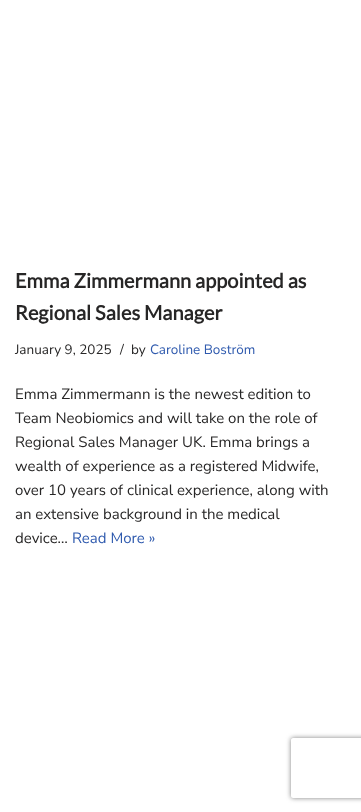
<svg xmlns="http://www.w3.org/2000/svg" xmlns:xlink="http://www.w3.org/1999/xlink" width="361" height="812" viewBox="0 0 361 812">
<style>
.cls-1{font:bold 20px Lato;fill:#272626}
.cls-2{font:13.5px Nunito Sans;fill:#272626}
.cls-3{font:13.5px Nunito Sans;fill:#2f5aae}
.cls-4{font:15px Nunito Sans;fill:#272626}
.cls-5{font:15px Nunito Sans;fill:#2f5aae}
</style>
<defs>
<clipPath id="clip1"><path d="M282 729H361V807H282ZM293 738H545C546 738 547 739 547 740V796C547 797 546 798 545 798H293C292 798 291 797 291 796V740C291 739 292 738 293 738Z" clip-rule="evenodd"/></clipPath>
</defs>
<rect width="100%" height="100%" fill="#ffffff"/>
<g clip-path="url(#clip1)">
<rect fill="#808080" filter="blur(2.5px)" x="291" y="738" width="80" height="60" rx="2"/>
</g>
<text class="cls-1"><tspan x="15" y="288">Emma Zimmermann appointed as</tspan><tspan x="15" y="320">Regional Sales Manager</tspan></text>
<text class="cls-2" x="15" y="354">January 9, 2025</text>
<text class="cls-2" x="120" y="354">/</text>
<text class="cls-2" x="131" y="354">by</text>
<text class="cls-3" x="150" y="354">Caroline Boström</text>
<text class="cls-4"><tspan x="15" y="399">Emma Zimmermann is the newest edition to</tspan><tspan x="15" y="423">Team Neobiomics and will take on the role of</tspan><tspan x="15" y="447">Regional Sales Manager UK. Emma brings a</tspan><tspan x="15" y="471">wealth of experience as a registered Midwife,</tspan><tspan x="15" y="495">over 10 years of clinical experience, along with</tspan><tspan x="15" y="519">an extensive background in the medical</tspan><tspan x="15" y="543">device…</tspan></text>
<text class="cls-5" x="72" y="543">Read More »</text>
</svg>
